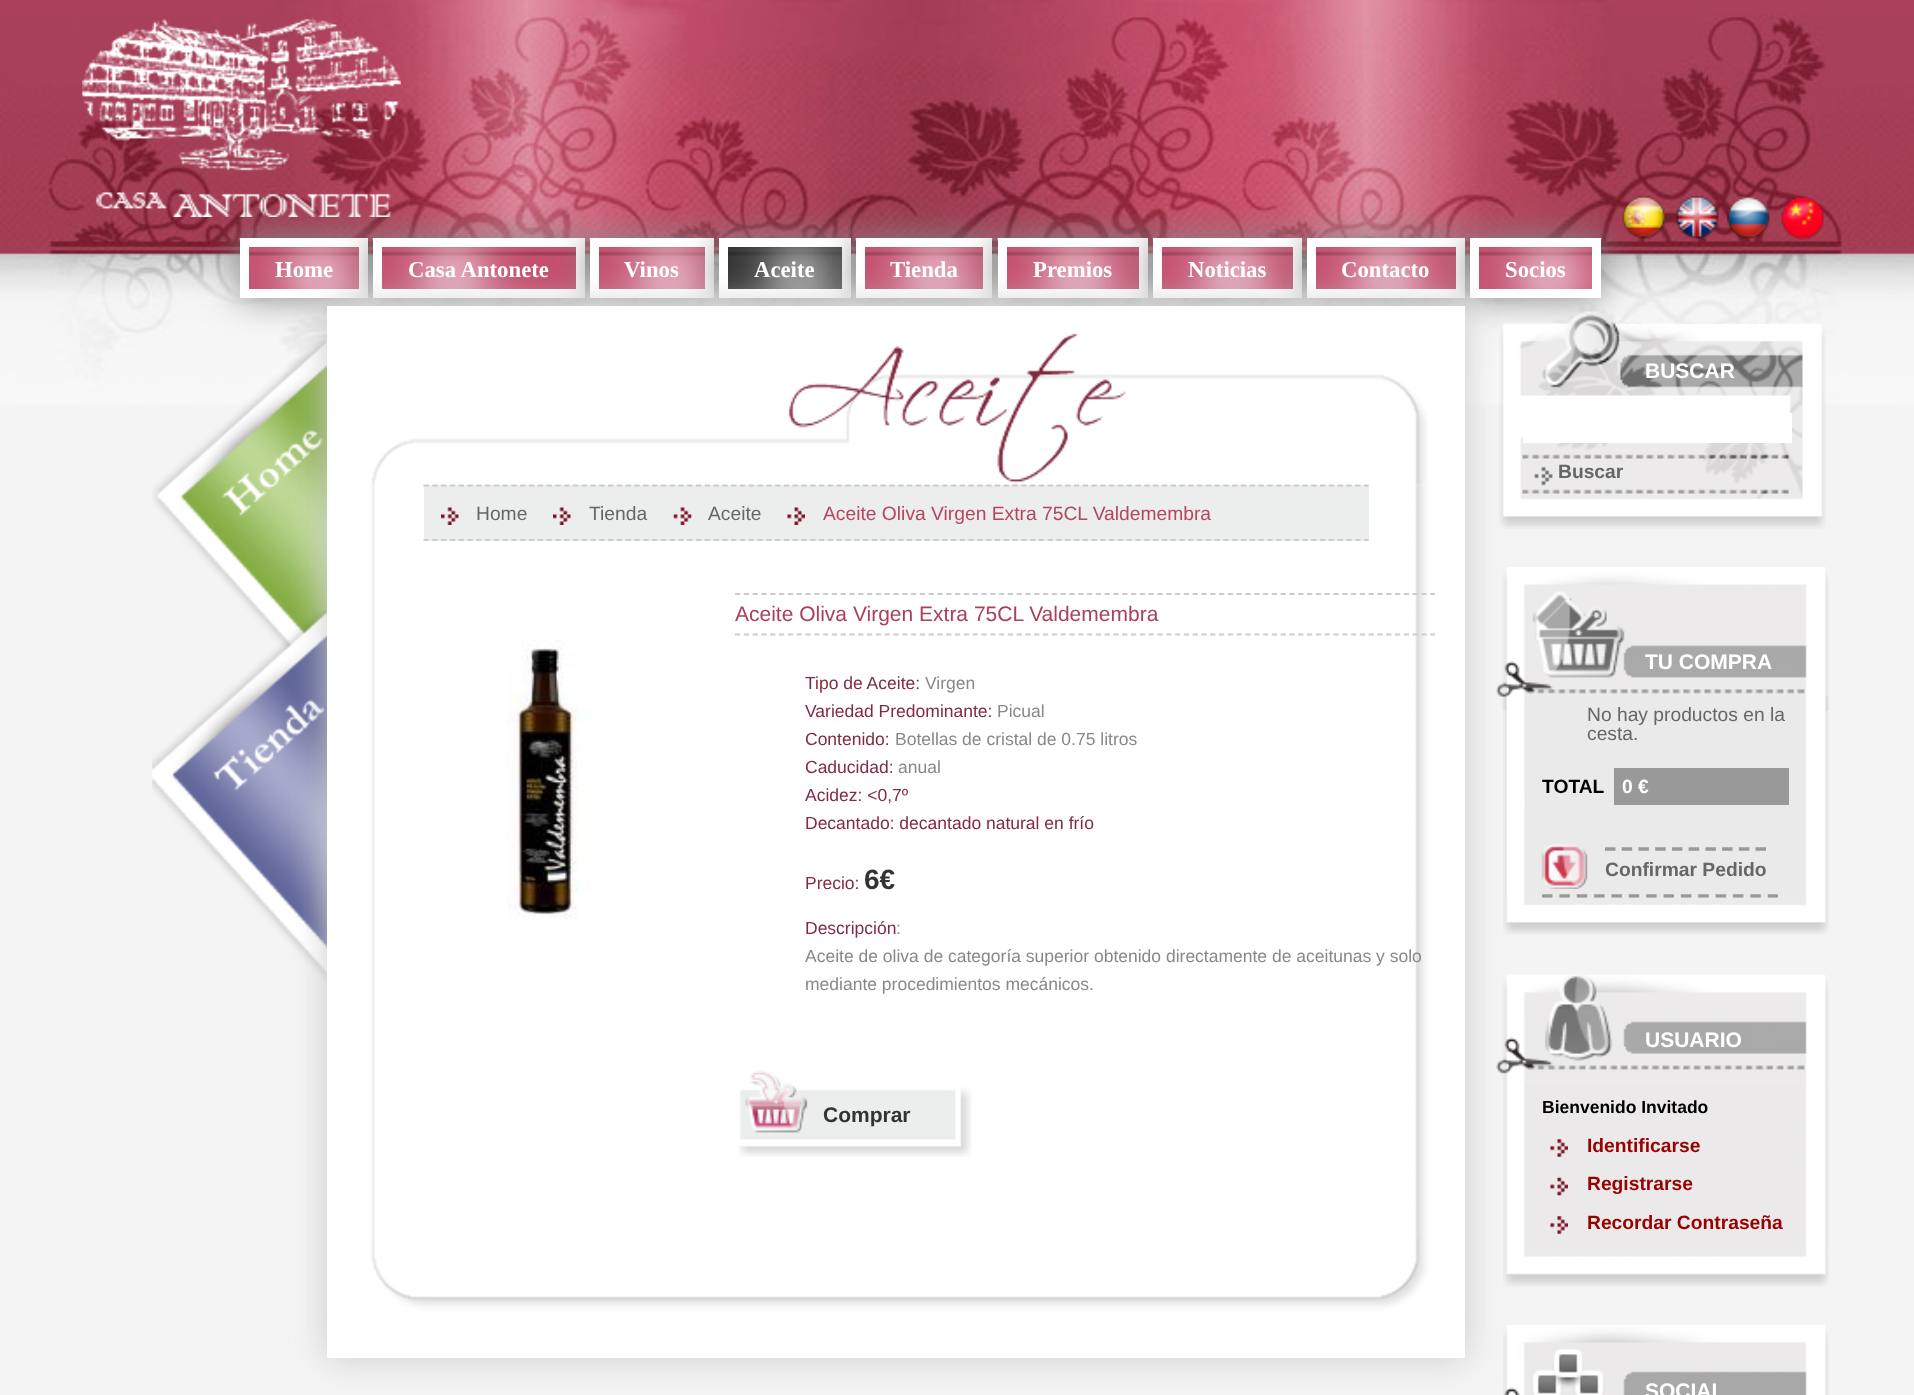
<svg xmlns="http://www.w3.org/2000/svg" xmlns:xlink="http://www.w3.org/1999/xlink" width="1914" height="1395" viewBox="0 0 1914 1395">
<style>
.cls-1{font:bold 22.75px Liberation Serif;fill:#ffffff}
.cls-2{font:19.25px Liberation Sans;fill:#666666}
.cls-3{font:19.25px Liberation Sans;fill:#b44661}
.cls-4{font:21px Liberation Sans;fill:#a94158}
.cls-5{font:17.5px Liberation Sans;fill:#812a40}
.cls-6{font:17.5px Liberation Sans;fill:#888888}
.cls-7{font:bold 28px Liberation Sans;fill:#333333}
.cls-8{font:bold 21px Liberation Sans;fill:#333333}
.cls-9{font:bold 21px Liberation Sans;fill:#ffffff}
.cls-10{font:bold 19.25px Liberation Sans;fill:#666666}
.cls-11{font:bold 19.25px Liberation Sans;fill:#000000}
.cls-12{font:bold 19.25px Liberation Sans;fill:#ffffff}
.cls-13{font:bold 17.5px Liberation Sans;fill:#000000}
.cls-14{font:bold 19.25px Liberation Sans;fill:#990000}
</style>
<rect width="100%" height="100%" fill="#f4f4f4"/>
<image xlink:href="image0.png" x="0" y="0" width="1914" height="405"/>
<image xlink:href="image1.png" x="82" y="17" width="319" height="200"/>
<image xlink:href="image2.png" x="1622" y="196" width="44" height="44"/>
<image xlink:href="image3.png" x="1675" y="196" width="44" height="44"/>
<image xlink:href="image4.png" x="1727" y="196" width="43" height="44"/>
<image xlink:href="image5.png" x="1781" y="196" width="43" height="44"/>
<rect fill="#888888" filter="blur(17.5px)" x="240" y="238" width="128" height="60"/>
<rect fill="#c44f6e" x="249" y="247" width="110" height="42"/>
<image xlink:href="image6.png" x="239" y="238" width="120" height="51"/>
<rect fill="none" stroke="#ffffff" stroke-width="9" x="244.5" y="242.5" width="119" height="51"/>
<rect fill="#888888" filter="blur(17.5px)" x="373" y="238" width="212" height="60"/>
<rect fill="#c44f6e" x="382" y="247" width="194" height="42"/>
<image xlink:href="image7.png" x="372" y="238" width="204" height="51"/>
<rect fill="none" stroke="#ffffff" stroke-width="9" x="377.5" y="242.5" width="203" height="51"/>
<rect fill="#888888" filter="blur(17.5px)" x="590" y="238" width="124" height="60"/>
<rect fill="#c44f6e" x="599" y="247" width="106" height="42"/>
<image xlink:href="image8.png" x="589" y="238" width="116" height="51"/>
<rect fill="none" stroke="#ffffff" stroke-width="9" x="594.5" y="242.5" width="115" height="51"/>
<rect fill="#888888" filter="blur(17.5px)" x="719" y="238" width="132" height="60"/>
<rect fill="#333333" x="728" y="247" width="114" height="42"/>
<image xlink:href="image9.png" x="728" y="247" width="114" height="42"/>
<rect fill="none" stroke="#ffffff" stroke-width="9" x="723.5" y="242.5" width="123" height="51"/>
<rect fill="#888888" filter="blur(17.5px)" x="856" y="238" width="136" height="60"/>
<rect fill="#c44f6e" x="865" y="247" width="118" height="42"/>
<image xlink:href="image10.png" x="855" y="238" width="138" height="51"/>
<rect fill="none" stroke="#ffffff" stroke-width="9" x="860.5" y="242.5" width="127" height="51"/>
<rect fill="#888888" filter="blur(17.5px)" x="998" y="238" width="150" height="60"/>
<rect fill="#c44f6e" x="1007" y="247" width="132" height="42"/>
<image xlink:href="image11.png" x="997" y="238" width="142" height="51"/>
<rect fill="none" stroke="#ffffff" stroke-width="9" x="1002.5" y="242.5" width="141" height="51"/>
<rect fill="#888888" filter="blur(17.5px)" x="1153" y="238" width="149" height="60"/>
<rect fill="#c44f6e" x="1162" y="247" width="131" height="42"/>
<image xlink:href="image12.png" x="1162" y="247" width="131" height="42"/>
<rect fill="none" stroke="#ffffff" stroke-width="9" x="1157.5" y="242.5" width="140" height="51"/>
<rect fill="#888888" filter="blur(17.5px)" x="1307" y="238" width="158" height="60"/>
<rect fill="#c44f6e" x="1316" y="247" width="140" height="42"/>
<image xlink:href="image13.png" x="1316" y="247" width="140" height="42"/>
<rect fill="none" stroke="#ffffff" stroke-width="9" x="1311.5" y="242.5" width="149" height="51"/>
<rect fill="#888888" filter="blur(17.5px)" x="1470" y="238" width="131" height="60"/>
<rect fill="#c44f6e" x="1479" y="247" width="113" height="42"/>
<image xlink:href="image14.png" x="1479" y="238" width="123" height="59"/>
<rect fill="none" stroke="#ffffff" stroke-width="9" x="1474.5" y="242.5" width="122" height="51"/>
<image xlink:href="image15.png" x="152" y="333" width="175" height="318"/>
<image xlink:href="image16.png" x="152" y="610" width="175" height="373"/>
<rect fill="#cbcbcb" filter="blur(17.5px)" x="327" y="306" width="1138" height="1052"/>
<rect fill="#ffffff" x="327" y="306" width="1138" height="1052"/>
<image xlink:href="image17.png" x="371" y="333" width="1057" height="152"/>
<image xlink:href="image18.png" x="356" y="485" width="1080" height="754"/>
<rect fill="#eceded" x="424" y="485" width="945" height="56"/>
<path fill="none" stroke="#cccccc" stroke-width="1.8" stroke-dasharray="5.25 3.54" d="M423.5 485.5H1368.5"/>
<path fill="none" stroke="#cccccc" stroke-width="1.8" stroke-dasharray="5.25 3.54" d="M423.5 540H1368.5"/>
<image xlink:href="image19.png" x="441" y="507" width="18" height="18"/>
<image xlink:href="image20.png" x="553" y="507" width="18" height="18"/>
<image xlink:href="image21.png" x="673" y="507" width="19" height="18"/>
<image xlink:href="image22.png" x="787" y="507" width="18" height="18"/>
<image xlink:href="image23.png" x="507" y="639" width="84" height="281"/>
<path fill="none" stroke="#cccccc" stroke-width="1.8" stroke-dasharray="5.25 3.55" d="M735 594H1435"/>
<path fill="none" stroke="#cccccc" stroke-width="1.8" stroke-dasharray="5.25 3.55" d="M735 634.5H1435"/>
<image xlink:href="image24.png" x="738" y="1070" width="234" height="87"/>
<image xlink:href="image25.png" x="356" y="1239" width="1080" height="85"/>
<image xlink:href="image26.png" x="1499" y="311" width="327" height="218"/>
<rect fill="#ffffff" x="1523" y="413" width="269" height="30"/>
<image xlink:href="image27.png" x="1496" y="567" width="333" height="144"/>
<image xlink:href="image28.png" x="1503" y="696" width="326" height="202"/>
<rect fill="#999999" x="1614" y="768" width="175" height="37"/>
<path fill="none" stroke="#999999" stroke-width="3.5" stroke-dasharray="10.5 6.86" d="M1542 896H1778"/>
<image xlink:href="image29.png" x="1541" y="844" width="47" height="45"/>
<path fill="none" stroke="#999999" stroke-width="3.5" stroke-dasharray="10.5 6.23" d="M1605 849H1766"/>
<image xlink:href="image30.png" x="1503" y="897" width="326" height="38"/>
<image xlink:href="image31.png" x="1496" y="974" width="333" height="108"/>
<image xlink:href="image32.png" x="1503" y="1081" width="326" height="169"/>
<image xlink:href="image33.png" x="1550" y="1139" width="18" height="18"/>
<image xlink:href="image34.png" x="1550" y="1177" width="18" height="19"/>
<image xlink:href="image35.png" x="1550" y="1216" width="18" height="18"/>
<image xlink:href="image36.png" x="1503" y="1249" width="326" height="38"/>
<image xlink:href="image37.png" x="1503" y="1325" width="326" height="70"/>
<text class="cls-1" x="275" y="277">Home</text>
<text class="cls-1" x="408" y="277">Casa Antonete</text>
<text class="cls-1" x="624" y="277">Vinos</text>
<text class="cls-1" x="754" y="277">Aceite</text>
<text class="cls-1" x="890" y="277">Tienda</text>
<text class="cls-1" x="1033" y="277">Premios</text>
<text class="cls-1" x="1188" y="277">Noticias</text>
<text class="cls-1" x="1341" y="277">Contacto</text>
<text class="cls-1" x="1505" y="277">Socios</text>
<text class="cls-2" x="476" y="520">Home</text>
<text class="cls-2" x="589" y="520">Tienda</text>
<text class="cls-2" x="708" y="520">Aceite</text>
<text class="cls-3" x="823" y="520">Aceite Oliva Virgen Extra 75CL Valdemembra</text>
<text class="cls-4" x="735" y="621">Aceite Oliva Virgen Extra 75CL Valdemembra</text>
<text class="cls-5" x="805" y="689">Tipo de Aceite:</text>
<text class="cls-6" x="925" y="689">Virgen</text>
<text class="cls-5" x="805" y="717">Variedad Predominante:</text>
<text class="cls-6" x="997" y="717">Picual</text>
<text class="cls-5" x="805" y="745">Contenido:</text>
<text class="cls-6" x="895" y="745">Botellas de cristal de 0.75 litros</text>
<text class="cls-5" x="805" y="773">Caducidad:</text>
<text class="cls-6" x="898" y="773">anual</text>
<text class="cls-5"><tspan x="805" y="801">Acidez: &lt;0,7º</tspan><tspan x="805" y="829">Decantado: decantado natural en frío</tspan></text>
<text class="cls-5" x="805" y="889">Precio:</text>
<text class="cls-7" x="864" y="889">6€</text>
<text class="cls-5" x="805" y="934">Descripción</text>
<text class="cls-6" x="896" y="934">:</text>
<text class="cls-6"><tspan x="805" y="962">Aceite de oliva de categoría superior obtenido directamente de aceitunas y solo</tspan><tspan x="805" y="990">mediante procedimientos mecánicos.</tspan></text>
<text class="cls-8" x="823" y="1122">Comprar</text>
<text class="cls-9" x="1645" y="378">BUSCAR</text>
<text class="cls-10" x="1558" y="478">Buscar</text>
<text class="cls-9" x="1645" y="669">TU COMPRA</text>
<text class="cls-2"><tspan x="1587" y="721">No hay productos en la</tspan><tspan x="1587" y="740">cesta.</tspan></text>
<text class="cls-11" x="1542" y="793">TOTAL</text>
<text class="cls-12" x="1622" y="793">0 €</text>
<text class="cls-10" x="1605" y="876">Confirmar Pedido</text>
<text class="cls-9" x="1645" y="1047">USUARIO</text>
<text class="cls-13" x="1542" y="1113">Bienvenido Invitado</text>
<text class="cls-14"><tspan x="1587" y="1152">Identificarse</tspan><tspan x="1587" y="1190">Registrarse</tspan></text>
<text class="cls-14" x="1587" y="1229">Recordar Contraseña</text>
<text class="cls-9" x="1645" y="1398">SOCIAL</text>
</svg>
